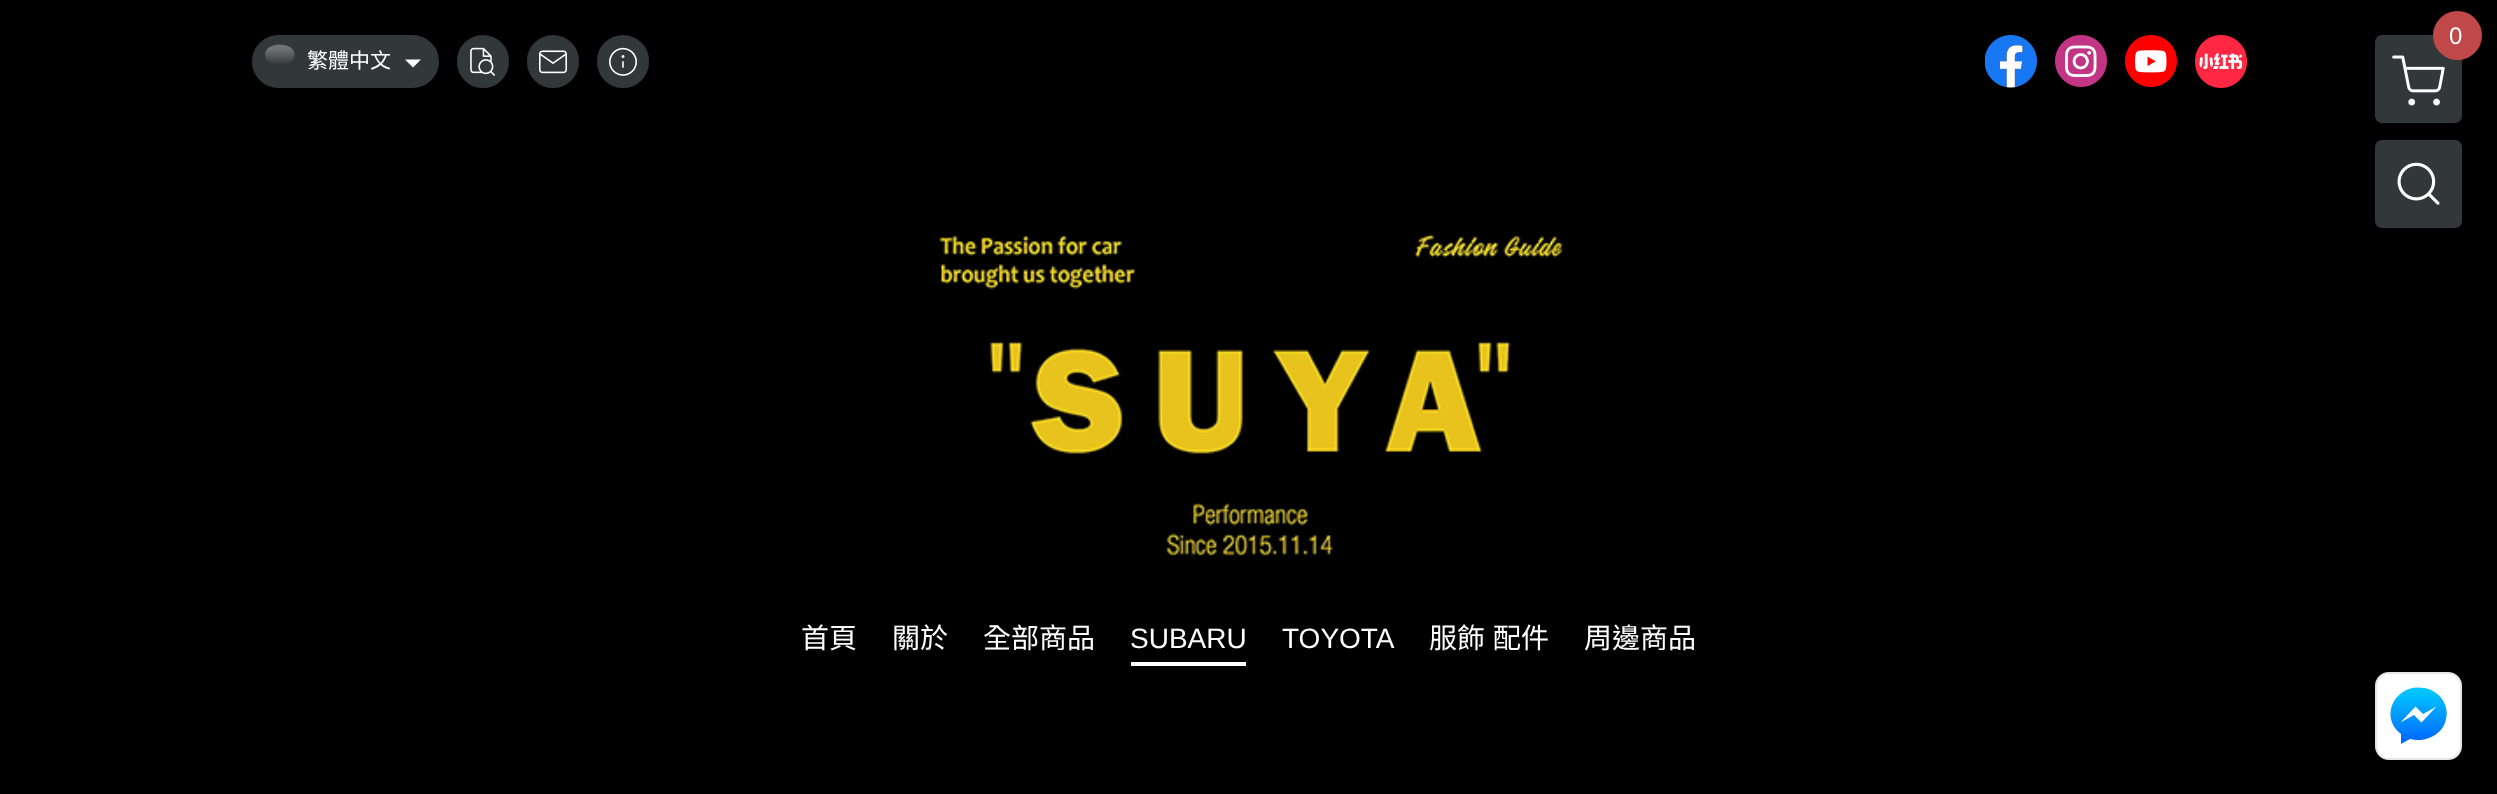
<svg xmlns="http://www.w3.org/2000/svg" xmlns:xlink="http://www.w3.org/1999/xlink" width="2497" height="794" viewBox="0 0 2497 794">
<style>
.cls-1{font:24px Liberation Sans;letter-spacing:2px;fill:#ffffff}
.cls-2{font:21px Noto Sans CJK TC;fill:#ffffff}
.cls-3{font:28px Noto Sans CJK TC;fill:#ffffff}
.cls-4{font:28px Liberation Sans;fill:#ffffff}
</style>
<defs>
<linearGradient id="g1" gradientUnits="userSpaceOnUse" x1="280" y1="65" x2="280" y2="49"><stop offset="0" stop-color="#32373a"/><stop offset="1" stop-color="#707375"/></linearGradient>
<linearGradient id="g2" gradientUnits="userSpaceOnUse" x1="2419" y1="691" x2="2419" y2="742"><stop offset="0" stop-color="#00c6ff"/><stop offset="1" stop-color="#0068ff"/></linearGradient>
</defs>
<rect width="100%" height="100%" fill="#000000"/>
<rect fill="#32373a" stroke="#32373a" stroke-width="2" x="2376" y="36" width="85" height="86" rx="6"/>
<image xlink:href="image0.png" x="2392" y="55" width="53" height="51"/>
<circle fill="#c14848" cx="2457.5" cy="35.5" r="24.5"/>
<rect fill="#32373a" stroke="#32373a" stroke-width="2" x="2376" y="141" width="85" height="86" rx="6"/>
<image xlink:href="image1.png" x="2397" y="162" width="43" height="43"/>
<rect fill="#32373a" stroke="#32373a" stroke-width="2" x="253" y="36" width="185" height="51" rx="25.5"/>
<path fill="url(#g1)" d="M294.5 54.5C294.5 68 265 68 265 54.5C265 41 294.5 41 294.5 54.5Z"/>
<path fill="#ffffff" d="M405 59.5H421L413 67.5Z"/>
<rect fill="#32373a" stroke="#32373a" stroke-width="2" x="458" y="36" width="50" height="51" rx="25"/>
<image xlink:href="image2.png" x="470" y="47" width="25" height="29"/>
<rect fill="#32373a" stroke="#32373a" stroke-width="2" x="528" y="36" width="50" height="51" rx="25"/>
<image xlink:href="image3.png" x="539" y="50" width="28" height="24"/>
<rect fill="#32373a" stroke="#32373a" stroke-width="2" x="598" y="36" width="50" height="51" rx="25"/>
<image xlink:href="image4.png" x="609" y="47" width="28" height="29"/>
<image xlink:href="image5.png" x="1985" y="35" width="52" height="53"/>
<image xlink:href="image6.png" x="2055" y="35" width="52" height="52"/>
<image xlink:href="image7.png" x="2125" y="35" width="52" height="52"/>
<image xlink:href="image8.png" x="2195" y="35" width="52" height="53"/>
<image xlink:href="image9.png" x="939" y="234" width="625" height="322"/>
<rect fill="#ffffff" x="1131" y="662" width="115" height="4"/>
<rect fill="#ffffff" stroke="#e6e6e6" stroke-width="2" x="2376" y="673" width="85" height="86" rx="13"/>
<path fill="url(#g2)" d="M2401 734V744L2410 739C2425 743 2443 735 2446 719C2448 712 2446 705 2442 699C2438 693 2431 689 2424 688C2396 683 2378 716 2401 734Z"/>
<path fill="#ffffff" d="M2415.5 706.5L2400.5 722.5L2414 715L2421.5 722.5L2436.5 706.5L2423 714Z"/>
<text class="cls-1" x="2449" y="44">0</text>
<text class="cls-2" x="307" y="68">繁體中文</text>
<text class="cls-3" x="801" y="648">首頁</text>
<text class="cls-3" x="892" y="648">關於</text>
<text class="cls-3" x="983" y="648">全部商品</text>
<text class="cls-4" x="1130" y="648">SUBARU</text>
<text class="cls-4" x="1282" y="648">TOYOTA</text>
<text class="cls-3" x="1429" y="648">服飾</text>
<text class="cls-3" x="1493" y="648">配件</text>
<text class="cls-3" x="1584" y="648">周邊商品</text>
</svg>
